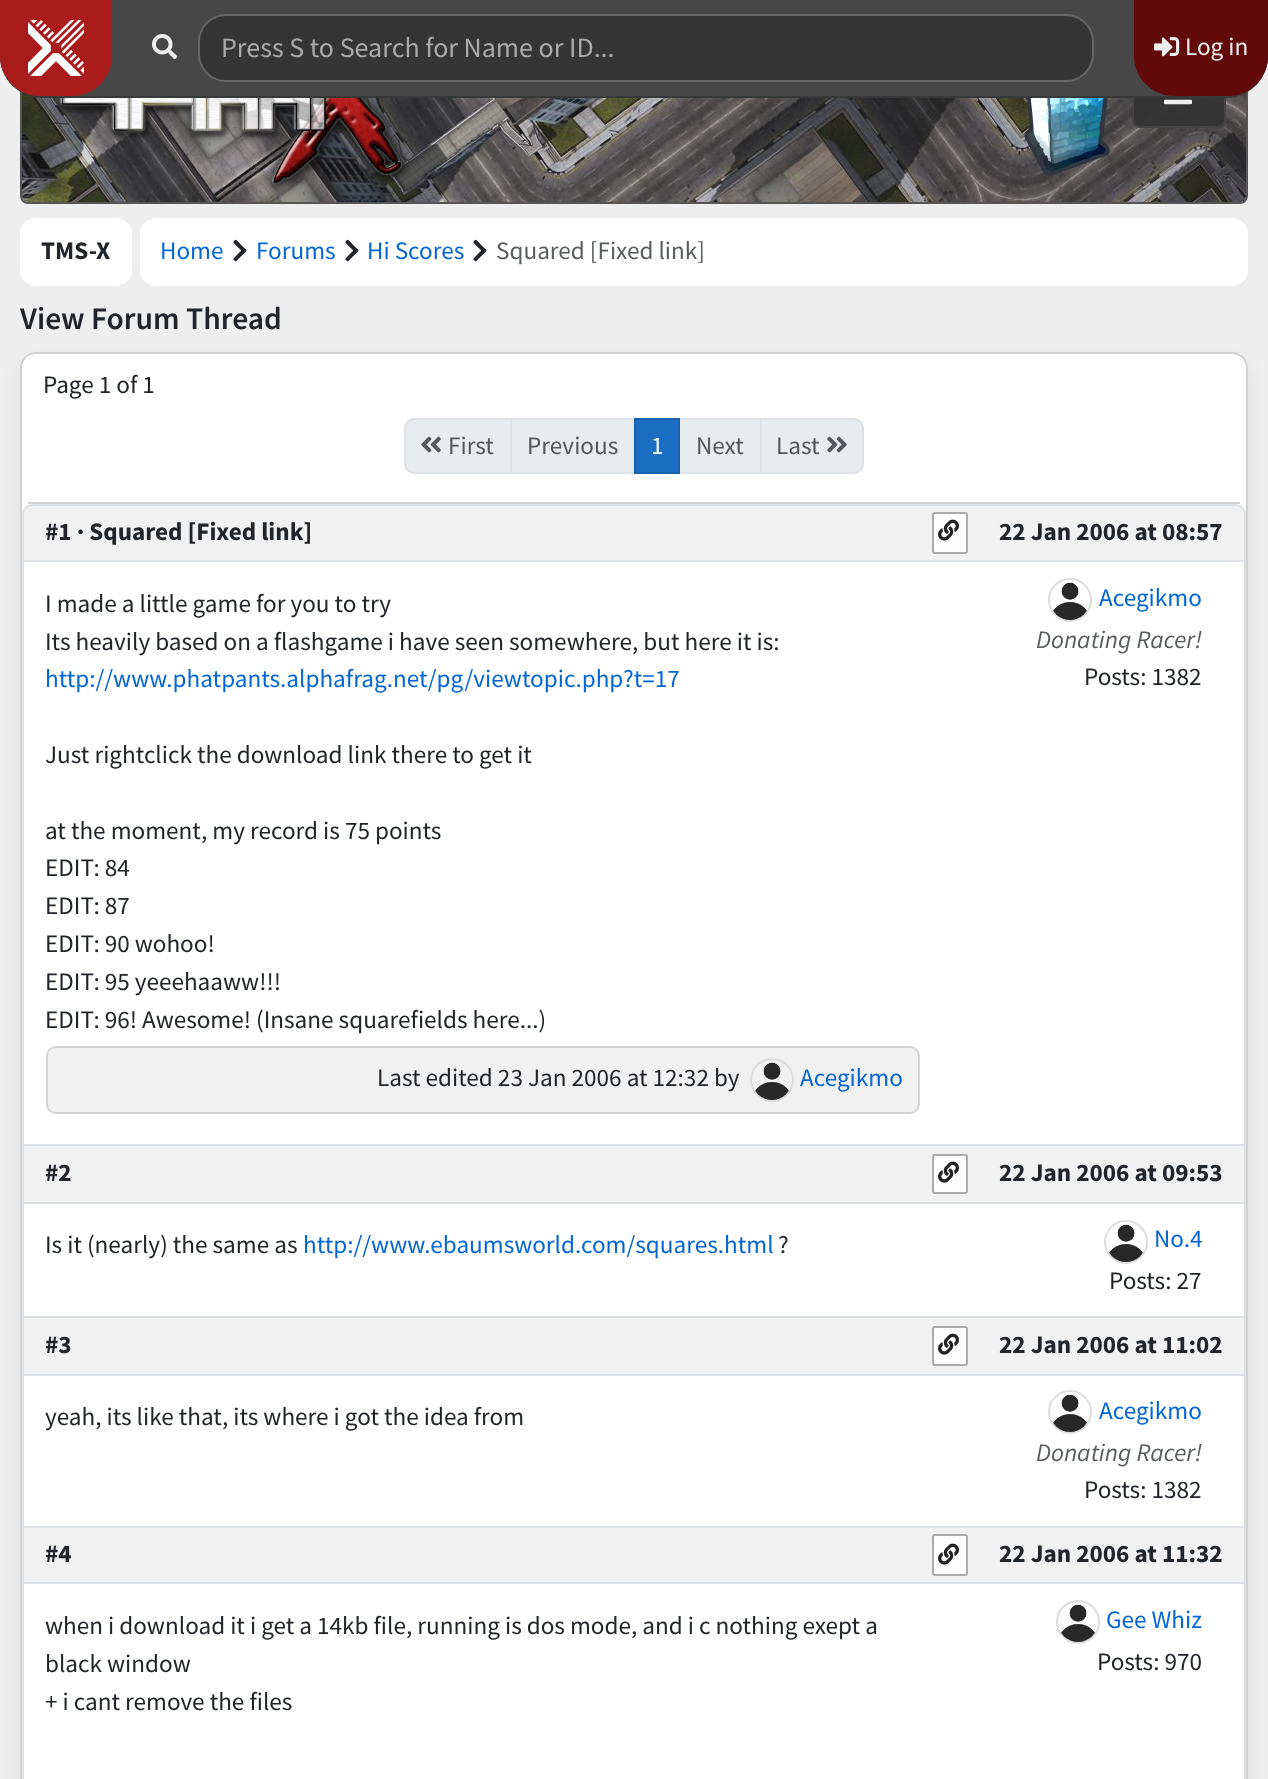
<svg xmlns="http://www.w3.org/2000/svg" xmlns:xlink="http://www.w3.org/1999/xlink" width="1268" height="1779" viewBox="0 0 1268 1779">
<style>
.cls-1{font:28px Source Sans Pro;fill:#aaaaaa}
.cls-2{font:25.2px Source Sans Pro;fill:#eeeeee}
.cls-3{font:bold 25.2px Source Sans Pro;fill:#212529}
.cls-4{font:25.2px Source Sans Pro;fill:#0366d6}
.cls-5{font:25.2px Source Sans Pro;fill:#595c5f}
.cls-6{font:600 31.5px Source Sans Pro;fill:#212529}
.cls-7{font:25.2px Source Sans Pro;fill:#212529}
.cls-8{font:25.2px Source Sans Pro;fill:#53575b}
.cls-9{font:25.2px Source Sans Pro;fill:#ffffff}
.cls-10{font:italic 25.2px Source Sans Pro;fill:#595c5f}
</style>
<defs>
<clipPath id="clip1"><rect x="1132" y="56" width="94" height="72" rx="8"/></clipPath>
<linearGradient id="g1" gradientUnits="userSpaceOnUse" x1="1134" y1="126" x2="1134" y2="58"><stop offset="0.39" stop-color="#333333" stop-opacity="0.95"/><stop offset="0.85" stop-color="#4d4d4d" stop-opacity="0.95"/></linearGradient>
</defs>
<rect width="100%" height="100%" fill="#eeeeee"/>
<rect fill="none" stroke="#555555" stroke-width="2" x="21" y="1" width="1226" height="202" rx="7"/>
<image xlink:href="image4.png" x="22" y="93" width="1224" height="109"/>
<g clip-path="url(#clip1)">
<rect fill="url(#g1)" x="1132" y="98" width="94" height="28"/>
</g>
<rect fill="none" stroke="#444444" stroke-width="2" x="1133" y="57" width="92" height="70" rx="7"/>
<path fill="#373938" d="M0 0H1268V56C1268 79 1249 98 1226 98H42C19 98 0 79 0 56Z"/>
<path fill="#474747" d="M0 0H1268V56C1268 78 1250 96 1228 96H40C18 96 0 78 0 56Z"/>
<path fill="#aa1c1c" d="M0 0H112V56C112 78 94 96 72 96H40C18 96 0 78 0 56Z"/>
<image xlink:href="image0.png" x="28" y="20" width="56" height="56"/>
<image xlink:href="image1.png" x="152" y="34" width="26" height="26"/>
<rect fill="#353535" stroke="#676767" stroke-width="2" x="199" y="15" width="894" height="66" rx="27"/>
<path fill="#620909" d="M1134 0H1268V56C1268 78 1250 96 1228 96H1174C1152 96 1134 78 1134 56Z"/>
<image xlink:href="image2.png" x="1154" y="37" width="26" height="20"/>
<image xlink:href="image3.png" x="1164" y="99" width="28" height="6"/>
<image xlink:href="image5.png" x="50" y="98" width="362" height="95"/>
<image xlink:href="image6.png" x="1024" y="98" width="86" height="78"/>
<rect fill="#ffffff" x="20" y="218" width="112" height="68" rx="16"/>
<rect fill="#ffffff" x="140" y="218" width="1108" height="68" rx="16"/>
<image xlink:href="image7.png" x="233" y="239" width="14" height="23"/>
<image xlink:href="image7.png" x="345" y="239" width="14" height="23"/>
<image xlink:href="image7.png" x="473" y="239" width="14" height="23"/>
<rect fill="#000000" fill-opacity="0.06" filter="blur(11px)" x="20" y="366" width="1228" height="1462" rx="16"/>
<rect fill="#ffffff" x="20" y="352" width="1228" height="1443" rx="16"/>
<rect fill="none" stroke="#000000" stroke-opacity="0.18" stroke-width="2" x="21" y="353" width="1226" height="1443" rx="15"/>
<path fill="#e9ecef" stroke="#dee2e6" stroke-width="2" d="M414 419H511V473H414C409 473 405 469 405 464V428C405 423 409 419 414 419Z"/>
<image xlink:href="image8.png" x="421" y="436" width="20" height="17"/>
<rect fill="#e9ecef" stroke="#dee2e6" stroke-width="2" x="511" y="419" width="124" height="54"/>
<rect fill="#e9ecef" stroke="#dee2e6" stroke-width="2" x="679" y="419" width="82" height="54"/>
<rect fill="#1b6ec2" stroke="#1861ac" stroke-width="2" x="635" y="419" width="44" height="54"/>
<path fill="#e9ecef" stroke="#dee2e6" stroke-width="2" d="M761 419H854C859 419 863 423 863 428V464C863 469 859 473 854 473H761Z"/>
<image xlink:href="image9.png" x="827" y="436" width="20" height="17"/>
<rect fill="#d2d2d2" x="28" y="502" width="1212" height="2"/>
<path fill="#f1f1f1" stroke="#dee2e6" stroke-width="2" d="M32 505H1236C1241 505 1245 509 1245 514V561H23V514C23 509 27 505 32 505Z"/>
<rect fill="#fefefe" stroke="#aaaaaa" stroke-width="2" x="933" y="513" width="34" height="40" rx="2"/>
<image xlink:href="image10.png" x="938" y="519" width="21" height="22"/>
<rect fill="#dee2e6" x="1244" y="562" width="2" height="1217"/>
<rect fill="#dee2e6" x="22" y="1144" width="1224" height="2"/>
<rect fill="#dee2e6" x="22" y="562" width="2" height="584"/>
<rect fill="#f1f1f1" stroke="#d3d3d3" stroke-width="2" x="47" y="1047" width="872" height="66" rx="9"/>
<circle fill="none" stroke="#dddddd" stroke-width="2" cx="772" cy="1080" r="21"/>
<image xlink:href="image11.png" x="755" y="1062" width="34" height="38"/>
<circle fill="none" stroke="#dddddd" stroke-width="2" cx="1070" cy="600" r="21"/>
<image xlink:href="image12.png" x="1053" y="582" width="34" height="38"/>
<rect fill="#f1f1f1" x="24" y="1146" width="1220" height="56"/>
<rect fill="#dee2e6" x="22" y="1202" width="1224" height="2"/>
<rect fill="#dee2e6" x="22" y="1146" width="2" height="58"/>
<rect fill="#fefefe" stroke="#aaaaaa" stroke-width="2" x="933" y="1155" width="34" height="38" rx="2"/>
<image xlink:href="image10.png" x="938" y="1161" width="21" height="22"/>
<rect fill="#dee2e6" x="22" y="1316" width="1224" height="2"/>
<rect fill="#dee2e6" x="22" y="1204" width="2" height="114"/>
<circle fill="none" stroke="#dddddd" stroke-width="2" cx="1126" cy="1242" r="21"/>
<image xlink:href="image13.png" x="1109" y="1224" width="34" height="38"/>
<rect fill="#f1f1f1" x="24" y="1318" width="1220" height="56"/>
<rect fill="#dee2e6" x="22" y="1374" width="1224" height="2"/>
<rect fill="#dee2e6" x="22" y="1318" width="2" height="58"/>
<rect fill="#fefefe" stroke="#aaaaaa" stroke-width="2" x="933" y="1327" width="34" height="38" rx="2"/>
<image xlink:href="image10.png" x="938" y="1333" width="21" height="22"/>
<rect fill="#dee2e6" x="22" y="1526" width="1224" height="2"/>
<rect fill="#dee2e6" x="22" y="1376" width="2" height="152"/>
<circle fill="none" stroke="#dddddd" stroke-width="2" cx="1070" cy="1412" r="21"/>
<image xlink:href="image14.png" x="1053" y="1394" width="34" height="38"/>
<rect fill="#f1f1f1" x="24" y="1528" width="1220" height="54"/>
<rect fill="#dee2e6" x="22" y="1582" width="1224" height="2"/>
<rect fill="#dee2e6" x="22" y="1528" width="2" height="251"/>
<rect fill="#fefefe" stroke="#aaaaaa" stroke-width="2" x="933" y="1535" width="34" height="40" rx="2"/>
<image xlink:href="image10.png" x="938" y="1543" width="21" height="22"/>
<circle fill="none" stroke="#dddddd" stroke-width="2" cx="1078" cy="1622" r="21"/>
<image xlink:href="image15.png" x="1061" y="1604" width="34" height="38"/>
<text class="cls-1" x="221" y="57">Press S to Search for Name or ID...</text>
<text class="cls-2" x="1185" y="55">Log in</text>
<text class="cls-3" x="41" y="259">TMS-X</text>
<text class="cls-4" x="160" y="259">Home</text>
<text class="cls-4" x="256" y="259">Forums</text>
<text class="cls-4" x="367" y="259">Hi Scores</text>
<text class="cls-5" x="496" y="259">Squared [Fixed link]</text>
<text class="cls-6" x="20" y="329">View Forum Thread</text>
<text class="cls-7" x="43" y="393">Page 1 of 1</text>
<text class="cls-8" x="448" y="454">First</text>
<text class="cls-8" x="527" y="454">Previous</text>
<text class="cls-9" x="651" y="454">1</text>
<text class="cls-8" x="696" y="454">Next</text>
<text class="cls-8" x="776" y="454">Last</text>
<text class="cls-3" x="45" y="540">#1 · Squared [Fixed link]</text>
<text class="cls-3" x="999" y="540">22 Jan 2006 at 08:57</text>
<text class="cls-7"><tspan x="45" y="612">I made a little game for you to try</tspan><tspan x="45" y="650">Its heavily based on a flashgame i have seen somewhere, but here it is:</tspan></text>
<text class="cls-4" x="45" y="687">http://www.phatpants.alphafrag.net/pg/viewtopic.php?t=17</text>
<text class="cls-7" x="45" y="763">Just rightclick the download link there to get it</text>
<text class="cls-7"><tspan x="45" y="839">at the moment, my record is 75 points</tspan><tspan x="45" y="876">EDIT: 84</tspan><tspan x="45" y="914">EDIT: 87</tspan><tspan x="45" y="952">EDIT: 90 wohoo!</tspan><tspan x="45" y="990">EDIT: 95 yeeehaaww!!!</tspan><tspan x="45" y="1028">EDIT: 96! Awesome! (Insane squarefields here...)</tspan></text>
<text class="cls-7" x="377" y="1086">Last edited 23 Jan 2006 at 12:32 by</text>
<text class="cls-4" x="800" y="1086">Acegikmo</text>
<text class="cls-4" x="1099" y="606">Acegikmo</text>
<text class="cls-10" x="1036" y="648">Donating Racer!</text>
<text class="cls-7" x="1084" y="685">Posts: 1382</text>
<text class="cls-3" x="45" y="1181">#2</text>
<text class="cls-3" x="999" y="1181">22 Jan 2006 at 09:53</text>
<text class="cls-7" x="45" y="1253">Is it (nearly) the same as</text>
<text class="cls-4" x="303" y="1253">http://www.ebaumsworld.com/squares.html</text>
<text class="cls-7" x="778" y="1253">?</text>
<text class="cls-4" x="1154" y="1247">No.4</text>
<text class="cls-7" x="1109" y="1289">Posts: 27</text>
<text class="cls-3" x="45" y="1353">#3</text>
<text class="cls-3" x="999" y="1353">22 Jan 2006 at 11:02</text>
<text class="cls-7" x="45" y="1425">yeah, its like that, its where i got the idea from</text>
<text class="cls-4" x="1099" y="1419">Acegikmo</text>
<text class="cls-10" x="1036" y="1461">Donating Racer!</text>
<text class="cls-7" x="1084" y="1498">Posts: 1382</text>
<text class="cls-3" x="45" y="1562">#4</text>
<text class="cls-3" x="999" y="1562">22 Jan 2006 at 11:32</text>
<text class="cls-7"><tspan x="45" y="1634">when i download it i get a 14kb file, running is dos mode, and i c nothing exept a</tspan><tspan x="45" y="1672">black window</tspan><tspan x="45" y="1710">+ i cant remove the files</tspan></text>
<text class="cls-4" x="1106" y="1628">Gee Whiz</text>
<text class="cls-7" x="1097" y="1670">Posts: 970</text>
</svg>
